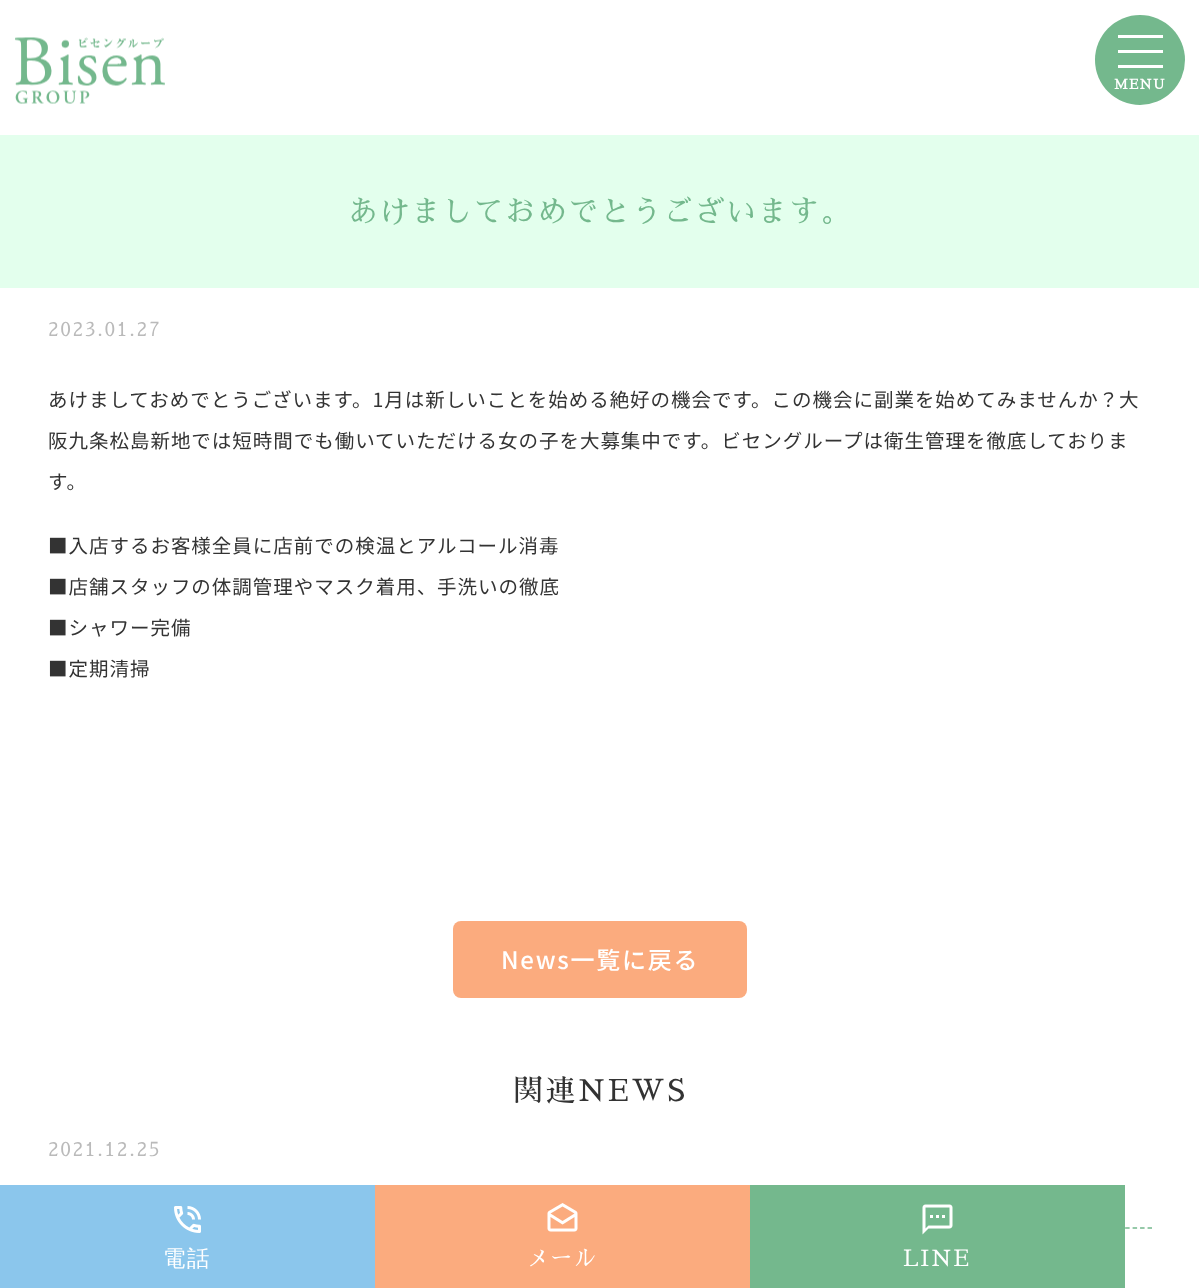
<svg xmlns="http://www.w3.org/2000/svg" xmlns:xlink="http://www.w3.org/1999/xlink" width="1199" height="1288" viewBox="0 0 1199 1288">
<style>
.cls-1{font:bold 13.5px Sawarabi Mincho;letter-spacing:1px;fill:#ffffff}
.cls-2{font:30px Sawarabi Mincho;letter-spacing:1.5px;fill:#74b88d}
.cls-3{font:19.5px Sawarabi Mincho;letter-spacing:1.5px;fill:#bababa}
.cls-4{font:19.5px Noto Sans JP;letter-spacing:0.98px;fill:#333333}
.cls-5{font:500 24px Noto Sans JP;letter-spacing:1.75px;fill:#ffffff}
.cls-6{font:30px Sawarabi Mincho;letter-spacing:2.25px;fill:#333333}
.cls-7{font:500 22.5px WenQuanYi Zen Hei;letter-spacing:1.5px;fill:#ffffff}
.cls-8{font:22.5px Sawarabi Mincho;letter-spacing:1.5px;fill:#ffffff}
</style>
<rect width="100%" height="100%" fill="#ffffff"/>
<image xlink:href="image0.png" x="15" y="37" width="150" height="67"/>
<circle fill="#74b88d" cx="1140" cy="60" r="45"/>
<rect fill="#ffffff" x="1118" y="35" width="45" height="3"/>
<rect fill="#ffffff" x="1118" y="50" width="45" height="3"/>
<rect fill="#ffffff" x="1118" y="65" width="45" height="3"/>
<rect fill="#e3ffed" x="0" y="135" width="1199" height="153"/>
<rect fill="#fbab7e" x="453" y="921" width="294" height="77" rx="8"/>
<path fill="none" stroke="#74b88d" stroke-width="1.5" stroke-dasharray="4.5 2.98" d="M48 1228H1152"/>
<rect fill="#8bc6ec" x="0" y="1185" width="375" height="103"/>
<image xlink:href="image1.png" x="174" y="1206" width="27" height="27"/>
<rect fill="#fbab7e" x="375" y="1185" width="375" height="103"/>
<image xlink:href="image2.png" x="547" y="1203" width="31" height="29"/>
<rect fill="#74b88d" x="750" y="1185" width="375" height="103"/>
<image xlink:href="image3.png" x="922" y="1204" width="31" height="31"/>
<text class="cls-1" x="1114" y="89">MENU</text>
<text class="cls-2" x="348" y="222">あけましておめでとうございます。</text>
<text class="cls-3" x="48" y="336">2023.01.27</text>
<text class="cls-4" x="48" y="407">あけましておめでとうございます。1月は新しいことを始める絶好の機会です。この機会に副業を始めてみませんか？大</text>
<text class="cls-4" x="48" y="448">阪九条松島新地では短時間でも働いていただける女の子を大募集中です。ビセングループは衛生管理を徹底しておりま</text>
<text class="cls-4" x="48" y="489">す。</text>
<text class="cls-4" x="48" y="553">■入店するお客様全員に店前での検温とアルコール消毒</text>
<text class="cls-4" x="48" y="594">■店舗スタッフの体調管理やマスク着用、手洗いの徹底</text>
<text class="cls-4" x="48" y="635">■シャワー完備</text>
<text class="cls-4" x="48" y="676">■定期清掃</text>
<text class="cls-5" x="501" y="969">News一覧に戻る</text>
<text class="cls-6" x="513" y="1101">関連NEWS</text>
<text class="cls-3" x="48" y="1156">2021.12.25</text>
<text class="cls-7" x="163" y="1266">電話</text>
<text class="cls-8" x="526" y="1266">メール</text>
<text class="cls-8" x="903" y="1266">LINE</text>
</svg>
